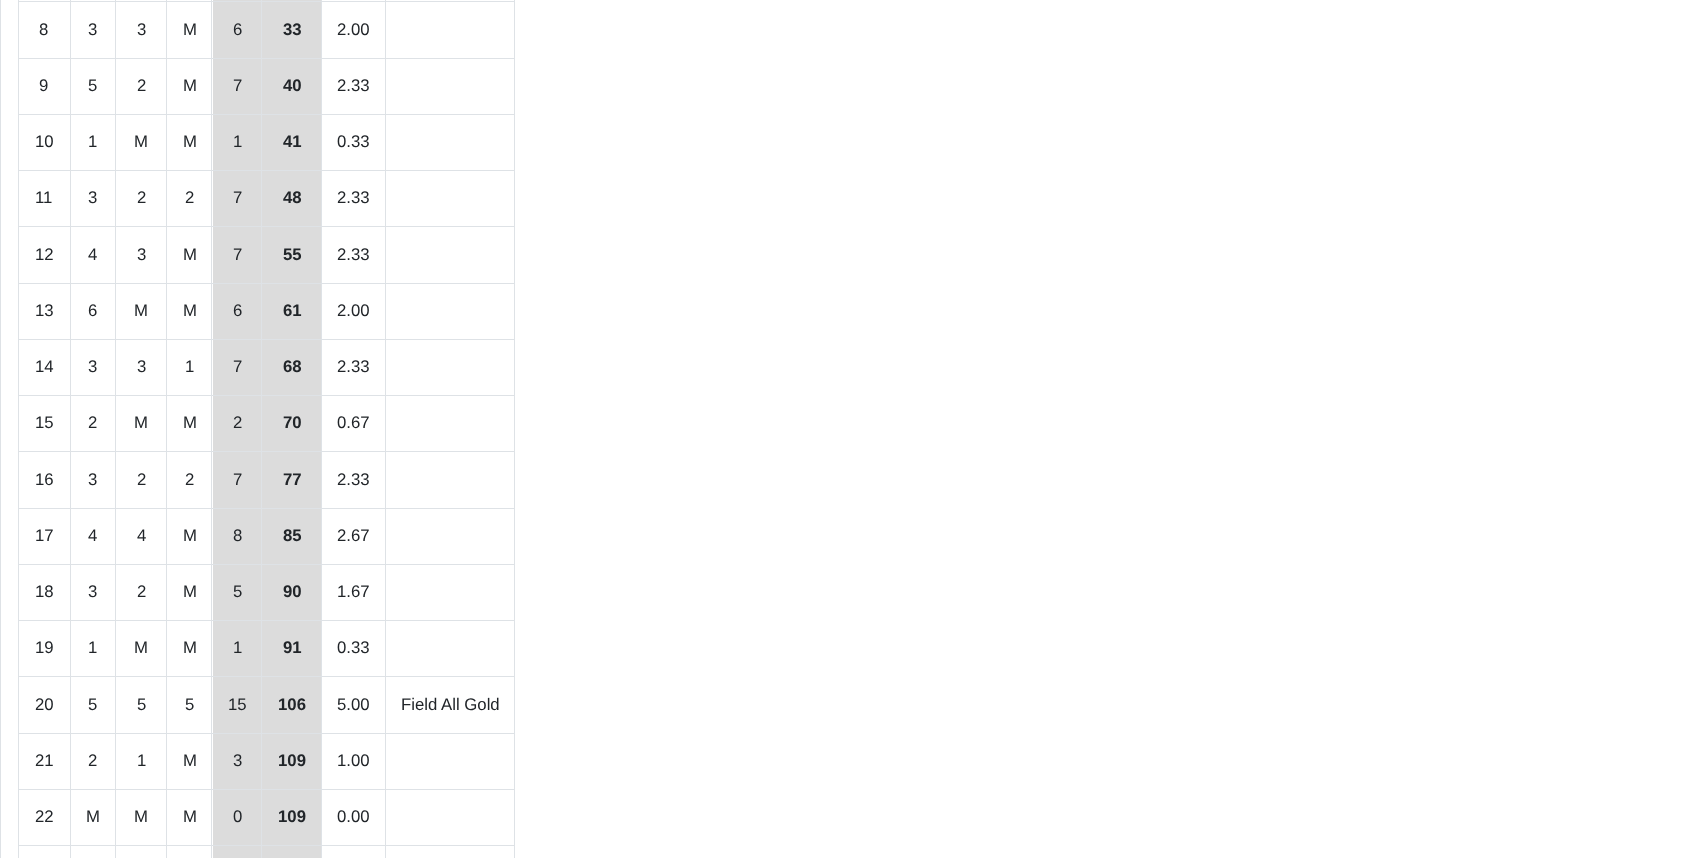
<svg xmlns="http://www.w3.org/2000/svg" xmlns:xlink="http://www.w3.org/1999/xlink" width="1694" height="858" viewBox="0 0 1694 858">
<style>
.cls-1{font:16.75px Liberation Sans;fill:#212529}
.cls-2{font:bold 16.75px Liberation Sans;fill:#212529}
</style>
<rect width="100%" height="100%" fill="#ffffff"/>
<rect fill="none" stroke="#dee2e6" x="0.5" y="-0.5" width="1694" height="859"/>
<rect fill="#dee2e6" x="385" y="1" width="130" height="1"/>
<rect fill="#dee2e6" x="385" y="58" width="130" height="1"/>
<rect fill="#dee2e6" x="385" y="114" width="130" height="1"/>
<rect fill="#dee2e6" x="385" y="170" width="130" height="1"/>
<rect fill="#dee2e6" x="385" y="226" width="130" height="1"/>
<rect fill="#dee2e6" x="385" y="283" width="130" height="1"/>
<rect fill="#dee2e6" x="385" y="339" width="130" height="1"/>
<rect fill="#dee2e6" x="385" y="395" width="130" height="1"/>
<rect fill="#dee2e6" x="385" y="451" width="130" height="1"/>
<rect fill="#dee2e6" x="385" y="508" width="130" height="1"/>
<rect fill="#dee2e6" x="385" y="564" width="130" height="1"/>
<rect fill="#dee2e6" x="385" y="620" width="130" height="1"/>
<rect fill="#dee2e6" x="385" y="676" width="130" height="1"/>
<rect fill="#dee2e6" x="385" y="733" width="130" height="1"/>
<rect fill="#dee2e6" x="385" y="789" width="130" height="1"/>
<rect fill="#dee2e6" x="385" y="845" width="130" height="1"/>
<rect fill="#dee2e6" x="385" y="845" width="1" height="13"/>
<rect fill="#dee2e6" x="321" y="845" width="65" height="1"/>
<rect fill="#dee2e6" x="385" y="789" width="1" height="57"/>
<rect fill="#dee2e6" x="321" y="789" width="65" height="1"/>
<rect fill="#dee2e6" x="385" y="733" width="1" height="57"/>
<rect fill="#dee2e6" x="321" y="733" width="65" height="1"/>
<rect fill="#dee2e6" x="385" y="676" width="1" height="58"/>
<rect fill="#dee2e6" x="321" y="676" width="65" height="1"/>
<rect fill="#dee2e6" x="385" y="620" width="1" height="58"/>
<rect fill="#dee2e6" x="321" y="620" width="65" height="1"/>
<rect fill="#dee2e6" x="385" y="564" width="1" height="57"/>
<rect fill="#dee2e6" x="321" y="564" width="65" height="1"/>
<rect fill="#dee2e6" x="385" y="508" width="1" height="57"/>
<rect fill="#dee2e6" x="321" y="508" width="65" height="1"/>
<rect fill="#dee2e6" x="385" y="451" width="1" height="58"/>
<rect fill="#dee2e6" x="321" y="451" width="65" height="1"/>
<rect fill="#dee2e6" x="385" y="395" width="1" height="58"/>
<rect fill="#dee2e6" x="321" y="395" width="65" height="1"/>
<rect fill="#dee2e6" x="385" y="339" width="1" height="57"/>
<rect fill="#dee2e6" x="321" y="339" width="65" height="1"/>
<rect fill="#dee2e6" x="385" y="283" width="1" height="57"/>
<rect fill="#dee2e6" x="321" y="283" width="65" height="1"/>
<rect fill="#dee2e6" x="385" y="226" width="1" height="58"/>
<rect fill="#dee2e6" x="321" y="226" width="65" height="1"/>
<rect fill="#dee2e6" x="385" y="170" width="1" height="58"/>
<rect fill="#dee2e6" x="321" y="170" width="65" height="1"/>
<rect fill="#dee2e6" x="385" y="114" width="1" height="57"/>
<rect fill="#dee2e6" x="321" y="114" width="65" height="1"/>
<rect fill="#dee2e6" x="385" y="58" width="1" height="57"/>
<rect fill="#dee2e6" x="321" y="58" width="65" height="1"/>
<rect fill="#dee2e6" x="385" y="1" width="1" height="58"/>
<rect fill="#dee2e6" x="321" y="1" width="65" height="1"/>
<rect fill="#dee2e6" x="321" y="845" width="1" height="13"/>
<rect fill="#dee2e6" x="261" y="845" width="62" height="1"/>
<rect fill="#dee2e6" x="321" y="789" width="1" height="57"/>
<rect fill="#dee2e6" x="261" y="789" width="62" height="1"/>
<rect fill="#dee2e6" x="321" y="733" width="1" height="57"/>
<rect fill="#dee2e6" x="261" y="733" width="62" height="1"/>
<rect fill="#dee2e6" x="321" y="676" width="1" height="58"/>
<rect fill="#dee2e6" x="261" y="676" width="62" height="1"/>
<rect fill="#dee2e6" x="321" y="620" width="1" height="58"/>
<rect fill="#dee2e6" x="261" y="620" width="62" height="1"/>
<rect fill="#dee2e6" x="321" y="564" width="1" height="57"/>
<rect fill="#dee2e6" x="261" y="564" width="62" height="1"/>
<rect fill="#dee2e6" x="321" y="508" width="1" height="57"/>
<rect fill="#dee2e6" x="261" y="508" width="62" height="1"/>
<rect fill="#dee2e6" x="321" y="451" width="1" height="58"/>
<rect fill="#dee2e6" x="261" y="451" width="62" height="1"/>
<rect fill="#dee2e6" x="321" y="395" width="1" height="58"/>
<rect fill="#dee2e6" x="261" y="395" width="62" height="1"/>
<rect fill="#dee2e6" x="321" y="339" width="1" height="57"/>
<rect fill="#dee2e6" x="261" y="339" width="62" height="1"/>
<rect fill="#dee2e6" x="321" y="283" width="1" height="57"/>
<rect fill="#dee2e6" x="261" y="283" width="62" height="1"/>
<rect fill="#dee2e6" x="321" y="226" width="1" height="58"/>
<rect fill="#dee2e6" x="261" y="226" width="62" height="1"/>
<rect fill="#dee2e6" x="321" y="170" width="1" height="58"/>
<rect fill="#dee2e6" x="261" y="170" width="62" height="1"/>
<rect fill="#dee2e6" x="321" y="114" width="1" height="57"/>
<rect fill="#dee2e6" x="261" y="114" width="62" height="1"/>
<rect fill="#dee2e6" x="321" y="58" width="1" height="57"/>
<rect fill="#dee2e6" x="261" y="58" width="62" height="1"/>
<rect fill="#dee2e6" x="321" y="1" width="1" height="58"/>
<rect fill="#dee2e6" x="261" y="1" width="62" height="1"/>
<rect fill="#dcdcdc" x="213" y="2" width="108" height="56"/>
<rect fill="#dcdcdc" x="213" y="59" width="108" height="55"/>
<rect fill="#dcdcdc" x="213" y="115" width="108" height="55"/>
<rect fill="#dcdcdc" x="213" y="171" width="108" height="55"/>
<rect fill="#dcdcdc" x="213" y="227" width="108" height="56"/>
<rect fill="#dcdcdc" x="213" y="284" width="108" height="55"/>
<rect fill="#dcdcdc" x="213" y="340" width="108" height="55"/>
<rect fill="#dcdcdc" x="213" y="396" width="108" height="55"/>
<rect fill="#dcdcdc" x="213" y="452" width="108" height="56"/>
<rect fill="#dcdcdc" x="213" y="509" width="108" height="55"/>
<rect fill="#dcdcdc" x="213" y="565" width="108" height="55"/>
<rect fill="#dcdcdc" x="213" y="621" width="108" height="55"/>
<rect fill="#dcdcdc" x="213" y="677" width="108" height="56"/>
<rect fill="#dcdcdc" x="213" y="734" width="108" height="55"/>
<rect fill="#dcdcdc" x="213" y="790" width="108" height="55"/>
<rect fill="#dcdcdc" x="213" y="846" width="108" height="12"/>
<rect fill="#dee2e6" x="261" y="845" width="1" height="13"/>
<rect fill="#dee2e6" x="211" y="845" width="52" height="1"/>
<rect fill="#dee2e6" x="261" y="789" width="1" height="57"/>
<rect fill="#dee2e6" x="211" y="789" width="52" height="1"/>
<rect fill="#dee2e6" x="261" y="733" width="1" height="57"/>
<rect fill="#dee2e6" x="211" y="733" width="52" height="1"/>
<rect fill="#dee2e6" x="261" y="676" width="1" height="58"/>
<rect fill="#dee2e6" x="211" y="676" width="52" height="1"/>
<rect fill="#dee2e6" x="261" y="620" width="1" height="58"/>
<rect fill="#dee2e6" x="211" y="620" width="52" height="1"/>
<rect fill="#dee2e6" x="261" y="564" width="1" height="57"/>
<rect fill="#dee2e6" x="211" y="564" width="52" height="1"/>
<rect fill="#dee2e6" x="261" y="508" width="1" height="57"/>
<rect fill="#dee2e6" x="211" y="508" width="52" height="1"/>
<rect fill="#dee2e6" x="261" y="451" width="1" height="58"/>
<rect fill="#dee2e6" x="211" y="451" width="52" height="1"/>
<rect fill="#dee2e6" x="261" y="395" width="1" height="58"/>
<rect fill="#dee2e6" x="211" y="395" width="52" height="1"/>
<rect fill="#dee2e6" x="261" y="339" width="1" height="57"/>
<rect fill="#dee2e6" x="211" y="339" width="52" height="1"/>
<rect fill="#dee2e6" x="261" y="283" width="1" height="57"/>
<rect fill="#dee2e6" x="211" y="283" width="52" height="1"/>
<rect fill="#dee2e6" x="261" y="226" width="1" height="58"/>
<rect fill="#dee2e6" x="211" y="226" width="52" height="1"/>
<rect fill="#dee2e6" x="261" y="170" width="1" height="58"/>
<rect fill="#dee2e6" x="211" y="170" width="52" height="1"/>
<rect fill="#dee2e6" x="261" y="114" width="1" height="57"/>
<rect fill="#dee2e6" x="211" y="114" width="52" height="1"/>
<rect fill="#dee2e6" x="261" y="58" width="1" height="57"/>
<rect fill="#dee2e6" x="211" y="58" width="52" height="1"/>
<rect fill="#dee2e6" x="261" y="1" width="1" height="58"/>
<rect fill="#dee2e6" x="211" y="1" width="52" height="1"/>
<rect fill="#dee2e6" x="211" y="845" width="1" height="13"/>
<rect fill="#dee2e6" x="166" y="845" width="47" height="1"/>
<rect fill="#dee2e6" x="211" y="789" width="1" height="57"/>
<rect fill="#dee2e6" x="166" y="789" width="47" height="1"/>
<rect fill="#dee2e6" x="211" y="733" width="1" height="57"/>
<rect fill="#dee2e6" x="166" y="733" width="47" height="1"/>
<rect fill="#dee2e6" x="211" y="676" width="1" height="58"/>
<rect fill="#dee2e6" x="166" y="676" width="47" height="1"/>
<rect fill="#dee2e6" x="211" y="620" width="1" height="58"/>
<rect fill="#dee2e6" x="166" y="620" width="47" height="1"/>
<rect fill="#dee2e6" x="211" y="564" width="1" height="57"/>
<rect fill="#dee2e6" x="166" y="564" width="47" height="1"/>
<rect fill="#dee2e6" x="211" y="508" width="1" height="57"/>
<rect fill="#dee2e6" x="166" y="508" width="47" height="1"/>
<rect fill="#dee2e6" x="211" y="451" width="1" height="58"/>
<rect fill="#dee2e6" x="166" y="451" width="47" height="1"/>
<rect fill="#dee2e6" x="211" y="395" width="1" height="58"/>
<rect fill="#dee2e6" x="166" y="395" width="47" height="1"/>
<rect fill="#dee2e6" x="211" y="339" width="1" height="57"/>
<rect fill="#dee2e6" x="166" y="339" width="47" height="1"/>
<rect fill="#dee2e6" x="211" y="283" width="1" height="57"/>
<rect fill="#dee2e6" x="166" y="283" width="47" height="1"/>
<rect fill="#dee2e6" x="211" y="226" width="1" height="58"/>
<rect fill="#dee2e6" x="166" y="226" width="47" height="1"/>
<rect fill="#dee2e6" x="211" y="170" width="1" height="58"/>
<rect fill="#dee2e6" x="166" y="170" width="47" height="1"/>
<rect fill="#dee2e6" x="211" y="114" width="1" height="57"/>
<rect fill="#dee2e6" x="166" y="114" width="47" height="1"/>
<rect fill="#dee2e6" x="211" y="58" width="1" height="57"/>
<rect fill="#dee2e6" x="166" y="58" width="47" height="1"/>
<rect fill="#dee2e6" x="211" y="1" width="1" height="58"/>
<rect fill="#dee2e6" x="166" y="1" width="47" height="1"/>
<rect fill="#dee2e6" x="166" y="845" width="1" height="13"/>
<rect fill="#dee2e6" x="115" y="845" width="53" height="1"/>
<rect fill="#dee2e6" x="166" y="789" width="1" height="57"/>
<rect fill="#dee2e6" x="115" y="789" width="53" height="1"/>
<rect fill="#dee2e6" x="166" y="733" width="1" height="57"/>
<rect fill="#dee2e6" x="115" y="733" width="53" height="1"/>
<rect fill="#dee2e6" x="166" y="676" width="1" height="58"/>
<rect fill="#dee2e6" x="115" y="676" width="53" height="1"/>
<rect fill="#dee2e6" x="166" y="620" width="1" height="58"/>
<rect fill="#dee2e6" x="115" y="620" width="53" height="1"/>
<rect fill="#dee2e6" x="166" y="564" width="1" height="57"/>
<rect fill="#dee2e6" x="115" y="564" width="53" height="1"/>
<rect fill="#dee2e6" x="166" y="508" width="1" height="57"/>
<rect fill="#dee2e6" x="115" y="508" width="53" height="1"/>
<rect fill="#dee2e6" x="166" y="451" width="1" height="58"/>
<rect fill="#dee2e6" x="115" y="451" width="53" height="1"/>
<rect fill="#dee2e6" x="166" y="395" width="1" height="58"/>
<rect fill="#dee2e6" x="115" y="395" width="53" height="1"/>
<rect fill="#dee2e6" x="166" y="339" width="1" height="57"/>
<rect fill="#dee2e6" x="115" y="339" width="53" height="1"/>
<rect fill="#dee2e6" x="166" y="283" width="1" height="57"/>
<rect fill="#dee2e6" x="115" y="283" width="53" height="1"/>
<rect fill="#dee2e6" x="166" y="226" width="1" height="58"/>
<rect fill="#dee2e6" x="115" y="226" width="53" height="1"/>
<rect fill="#dee2e6" x="166" y="170" width="1" height="58"/>
<rect fill="#dee2e6" x="115" y="170" width="53" height="1"/>
<rect fill="#dee2e6" x="166" y="114" width="1" height="57"/>
<rect fill="#dee2e6" x="115" y="114" width="53" height="1"/>
<rect fill="#dee2e6" x="166" y="58" width="1" height="57"/>
<rect fill="#dee2e6" x="115" y="58" width="53" height="1"/>
<rect fill="#dee2e6" x="166" y="1" width="1" height="58"/>
<rect fill="#dee2e6" x="115" y="1" width="53" height="1"/>
<rect fill="#dee2e6" x="115" y="845" width="1" height="13"/>
<rect fill="#dee2e6" x="70" y="845" width="46" height="1"/>
<rect fill="#dee2e6" x="115" y="789" width="1" height="57"/>
<rect fill="#dee2e6" x="70" y="789" width="46" height="1"/>
<rect fill="#dee2e6" x="115" y="733" width="1" height="57"/>
<rect fill="#dee2e6" x="70" y="733" width="46" height="1"/>
<rect fill="#dee2e6" x="115" y="676" width="1" height="58"/>
<rect fill="#dee2e6" x="70" y="676" width="46" height="1"/>
<rect fill="#dee2e6" x="115" y="620" width="1" height="58"/>
<rect fill="#dee2e6" x="70" y="620" width="46" height="1"/>
<rect fill="#dee2e6" x="115" y="564" width="1" height="57"/>
<rect fill="#dee2e6" x="70" y="564" width="46" height="1"/>
<rect fill="#dee2e6" x="115" y="508" width="1" height="57"/>
<rect fill="#dee2e6" x="70" y="508" width="46" height="1"/>
<rect fill="#dee2e6" x="115" y="451" width="1" height="58"/>
<rect fill="#dee2e6" x="70" y="451" width="46" height="1"/>
<rect fill="#dee2e6" x="115" y="395" width="1" height="58"/>
<rect fill="#dee2e6" x="70" y="395" width="46" height="1"/>
<rect fill="#dee2e6" x="115" y="339" width="1" height="57"/>
<rect fill="#dee2e6" x="70" y="339" width="46" height="1"/>
<rect fill="#dee2e6" x="115" y="283" width="1" height="57"/>
<rect fill="#dee2e6" x="70" y="283" width="46" height="1"/>
<rect fill="#dee2e6" x="115" y="226" width="1" height="58"/>
<rect fill="#dee2e6" x="70" y="226" width="46" height="1"/>
<rect fill="#dee2e6" x="115" y="170" width="1" height="58"/>
<rect fill="#dee2e6" x="70" y="170" width="46" height="1"/>
<rect fill="#dee2e6" x="115" y="114" width="1" height="57"/>
<rect fill="#dee2e6" x="70" y="114" width="46" height="1"/>
<rect fill="#dee2e6" x="115" y="58" width="1" height="57"/>
<rect fill="#dee2e6" x="70" y="58" width="46" height="1"/>
<rect fill="#dee2e6" x="115" y="1" width="1" height="58"/>
<rect fill="#dee2e6" x="70" y="1" width="46" height="1"/>
<rect fill="#dee2e6" x="70" y="845" width="1" height="13"/>
<rect fill="#dee2e6" x="18" y="845" width="53" height="1"/>
<rect fill="#dee2e6" x="70" y="789" width="1" height="57"/>
<rect fill="#dee2e6" x="18" y="789" width="53" height="1"/>
<rect fill="#dee2e6" x="70" y="733" width="1" height="57"/>
<rect fill="#dee2e6" x="18" y="733" width="53" height="1"/>
<rect fill="#dee2e6" x="70" y="676" width="1" height="58"/>
<rect fill="#dee2e6" x="18" y="676" width="53" height="1"/>
<rect fill="#dee2e6" x="70" y="620" width="1" height="58"/>
<rect fill="#dee2e6" x="18" y="620" width="53" height="1"/>
<rect fill="#dee2e6" x="70" y="564" width="1" height="57"/>
<rect fill="#dee2e6" x="18" y="564" width="53" height="1"/>
<rect fill="#dee2e6" x="70" y="508" width="1" height="57"/>
<rect fill="#dee2e6" x="18" y="508" width="53" height="1"/>
<rect fill="#dee2e6" x="70" y="451" width="1" height="58"/>
<rect fill="#dee2e6" x="18" y="451" width="53" height="1"/>
<rect fill="#dee2e6" x="70" y="395" width="1" height="58"/>
<rect fill="#dee2e6" x="18" y="395" width="53" height="1"/>
<rect fill="#dee2e6" x="70" y="339" width="1" height="57"/>
<rect fill="#dee2e6" x="18" y="339" width="53" height="1"/>
<rect fill="#dee2e6" x="70" y="283" width="1" height="57"/>
<rect fill="#dee2e6" x="18" y="283" width="53" height="1"/>
<rect fill="#dee2e6" x="70" y="226" width="1" height="58"/>
<rect fill="#dee2e6" x="18" y="226" width="53" height="1"/>
<rect fill="#dee2e6" x="70" y="170" width="1" height="58"/>
<rect fill="#dee2e6" x="18" y="170" width="53" height="1"/>
<rect fill="#dee2e6" x="70" y="114" width="1" height="57"/>
<rect fill="#dee2e6" x="18" y="114" width="53" height="1"/>
<rect fill="#dee2e6" x="70" y="58" width="1" height="57"/>
<rect fill="#dee2e6" x="18" y="58" width="53" height="1"/>
<rect fill="#dee2e6" x="70" y="1" width="1" height="58"/>
<rect fill="#dee2e6" x="18" y="1" width="53" height="1"/>
<rect fill="#dee2e6" x="70" y="0" width="1" height="3"/>
<rect fill="#dee2e6" x="115" y="0" width="1" height="3"/>
<rect fill="#dee2e6" x="166" y="0" width="1" height="3"/>
<rect fill="#dcdcdc" x="213" y="0" width="108" height="1"/>
<rect fill="#dee2e6" x="211" y="0" width="1" height="3"/>
<rect fill="#dee2e6" x="261" y="0" width="1" height="3"/>
<rect fill="#dee2e6" x="321" y="0" width="1" height="3"/>
<rect fill="#dee2e6" x="385" y="0" width="1" height="3"/>
<rect fill="#dee2e6" x="18" y="845" width="1" height="13"/>
<rect fill="#dee2e6" x="18" y="789" width="1" height="57"/>
<rect fill="#dee2e6" x="18" y="733" width="1" height="57"/>
<rect fill="#dee2e6" x="18" y="676" width="1" height="58"/>
<rect fill="#dee2e6" x="18" y="620" width="1" height="58"/>
<rect fill="#dee2e6" x="18" y="564" width="1" height="57"/>
<rect fill="#dee2e6" x="18" y="508" width="1" height="57"/>
<rect fill="#dee2e6" x="18" y="451" width="1" height="58"/>
<rect fill="#dee2e6" x="18" y="395" width="1" height="58"/>
<rect fill="#dee2e6" x="18" y="339" width="1" height="57"/>
<rect fill="#dee2e6" x="18" y="283" width="1" height="57"/>
<rect fill="#dee2e6" x="18" y="226" width="1" height="58"/>
<rect fill="#dee2e6" x="18" y="170" width="1" height="58"/>
<rect fill="#dee2e6" x="18" y="114" width="1" height="57"/>
<rect fill="#dee2e6" x="18" y="58" width="1" height="57"/>
<rect fill="#dee2e6" x="18" y="0" width="1" height="59"/>
<rect fill="#dee2e6" x="514" y="845" width="1" height="13"/>
<rect fill="#dee2e6" x="514" y="789" width="1" height="57"/>
<rect fill="#dee2e6" x="514" y="733" width="1" height="57"/>
<rect fill="#dee2e6" x="514" y="676" width="1" height="58"/>
<rect fill="#dee2e6" x="514" y="620" width="1" height="58"/>
<rect fill="#dee2e6" x="514" y="564" width="1" height="57"/>
<rect fill="#dee2e6" x="514" y="508" width="1" height="57"/>
<rect fill="#dee2e6" x="514" y="451" width="1" height="58"/>
<rect fill="#dee2e6" x="514" y="395" width="1" height="58"/>
<rect fill="#dee2e6" x="514" y="339" width="1" height="57"/>
<rect fill="#dee2e6" x="514" y="283" width="1" height="57"/>
<rect fill="#dee2e6" x="514" y="226" width="1" height="58"/>
<rect fill="#dee2e6" x="514" y="170" width="1" height="58"/>
<rect fill="#dee2e6" x="514" y="114" width="1" height="57"/>
<rect fill="#dee2e6" x="514" y="58" width="1" height="57"/>
<rect fill="#dee2e6" x="514" y="0" width="1" height="59"/>
<text class="cls-1" x="39" y="35">8</text>
<text class="cls-1" x="88" y="35">3</text>
<text class="cls-1" x="137" y="35">3</text>
<text class="cls-1" x="183" y="35">M</text>
<text class="cls-1" x="233" y="35">6</text>
<text class="cls-2" x="283" y="35">33</text>
<text class="cls-1" x="337" y="35">2.00</text>
<text class="cls-1" x="39" y="91">9</text>
<text class="cls-1" x="88" y="91">5</text>
<text class="cls-1" x="137" y="91">2</text>
<text class="cls-1" x="183" y="91">M</text>
<text class="cls-1" x="233" y="91">7</text>
<text class="cls-2" x="283" y="91">40</text>
<text class="cls-1" x="337" y="91">2.33</text>
<text class="cls-1" x="35" y="147">10</text>
<text class="cls-1" x="88" y="147">1</text>
<text class="cls-1" x="134" y="147">M</text>
<text class="cls-1" x="183" y="147">M</text>
<text class="cls-1" x="233" y="147">1</text>
<text class="cls-2" x="283" y="147">41</text>
<text class="cls-1" x="337" y="147">0.33</text>
<text class="cls-1" x="35" y="203">11</text>
<text class="cls-1" x="88" y="203">3</text>
<text class="cls-1" x="137" y="203">2</text>
<text class="cls-1" x="185" y="203">2</text>
<text class="cls-1" x="233" y="203">7</text>
<text class="cls-2" x="283" y="203">48</text>
<text class="cls-1" x="337" y="203">2.33</text>
<text class="cls-1" x="35" y="260">12</text>
<text class="cls-1" x="88" y="260">4</text>
<text class="cls-1" x="137" y="260">3</text>
<text class="cls-1" x="183" y="260">M</text>
<text class="cls-1" x="233" y="260">7</text>
<text class="cls-2" x="283" y="260">55</text>
<text class="cls-1" x="337" y="260">2.33</text>
<text class="cls-1" x="35" y="316">13</text>
<text class="cls-1" x="88" y="316">6</text>
<text class="cls-1" x="134" y="316">M</text>
<text class="cls-1" x="183" y="316">M</text>
<text class="cls-1" x="233" y="316">6</text>
<text class="cls-2" x="283" y="316">61</text>
<text class="cls-1" x="337" y="316">2.00</text>
<text class="cls-1" x="35" y="372">14</text>
<text class="cls-1" x="88" y="372">3</text>
<text class="cls-1" x="137" y="372">3</text>
<text class="cls-1" x="185" y="372">1</text>
<text class="cls-1" x="233" y="372">7</text>
<text class="cls-2" x="283" y="372">68</text>
<text class="cls-1" x="337" y="372">2.33</text>
<text class="cls-1" x="35" y="428">15</text>
<text class="cls-1" x="88" y="428">2</text>
<text class="cls-1" x="134" y="428">M</text>
<text class="cls-1" x="183" y="428">M</text>
<text class="cls-1" x="233" y="428">2</text>
<text class="cls-2" x="283" y="428">70</text>
<text class="cls-1" x="337" y="428">0.67</text>
<text class="cls-1" x="35" y="485">16</text>
<text class="cls-1" x="88" y="485">3</text>
<text class="cls-1" x="137" y="485">2</text>
<text class="cls-1" x="185" y="485">2</text>
<text class="cls-1" x="233" y="485">7</text>
<text class="cls-2" x="283" y="485">77</text>
<text class="cls-1" x="337" y="485">2.33</text>
<text class="cls-1" x="35" y="541">17</text>
<text class="cls-1" x="88" y="541">4</text>
<text class="cls-1" x="137" y="541">4</text>
<text class="cls-1" x="183" y="541">M</text>
<text class="cls-1" x="233" y="541">8</text>
<text class="cls-2" x="283" y="541">85</text>
<text class="cls-1" x="337" y="541">2.67</text>
<text class="cls-1" x="35" y="597">18</text>
<text class="cls-1" x="88" y="597">3</text>
<text class="cls-1" x="137" y="597">2</text>
<text class="cls-1" x="183" y="597">M</text>
<text class="cls-1" x="233" y="597">5</text>
<text class="cls-2" x="283" y="597">90</text>
<text class="cls-1" x="337" y="597">1.67</text>
<text class="cls-1" x="35" y="653">19</text>
<text class="cls-1" x="88" y="653">1</text>
<text class="cls-1" x="134" y="653">M</text>
<text class="cls-1" x="183" y="653">M</text>
<text class="cls-1" x="233" y="653">1</text>
<text class="cls-2" x="283" y="653">91</text>
<text class="cls-1" x="337" y="653">0.33</text>
<text class="cls-1" x="35" y="710">20</text>
<text class="cls-1" x="88" y="710">5</text>
<text class="cls-1" x="137" y="710">5</text>
<text class="cls-1" x="185" y="710">5</text>
<text class="cls-1" x="228" y="710">15</text>
<text class="cls-2" x="278" y="710">106</text>
<text class="cls-1" x="337" y="710">5.00</text>
<text class="cls-1" x="401" y="710">Field All Gold</text>
<text class="cls-1" x="35" y="766">21</text>
<text class="cls-1" x="88" y="766">2</text>
<text class="cls-1" x="137" y="766">1</text>
<text class="cls-1" x="183" y="766">M</text>
<text class="cls-1" x="233" y="766">3</text>
<text class="cls-2" x="278" y="766">109</text>
<text class="cls-1" x="337" y="766">1.00</text>
<text class="cls-1" x="35" y="822">22</text>
<text class="cls-1" x="86" y="822">M</text>
<text class="cls-1" x="134" y="822">M</text>
<text class="cls-1" x="183" y="822">M</text>
<text class="cls-1" x="233" y="822">0</text>
<text class="cls-2" x="278" y="822">109</text>
<text class="cls-1" x="337" y="822">0.00</text>
</svg>
